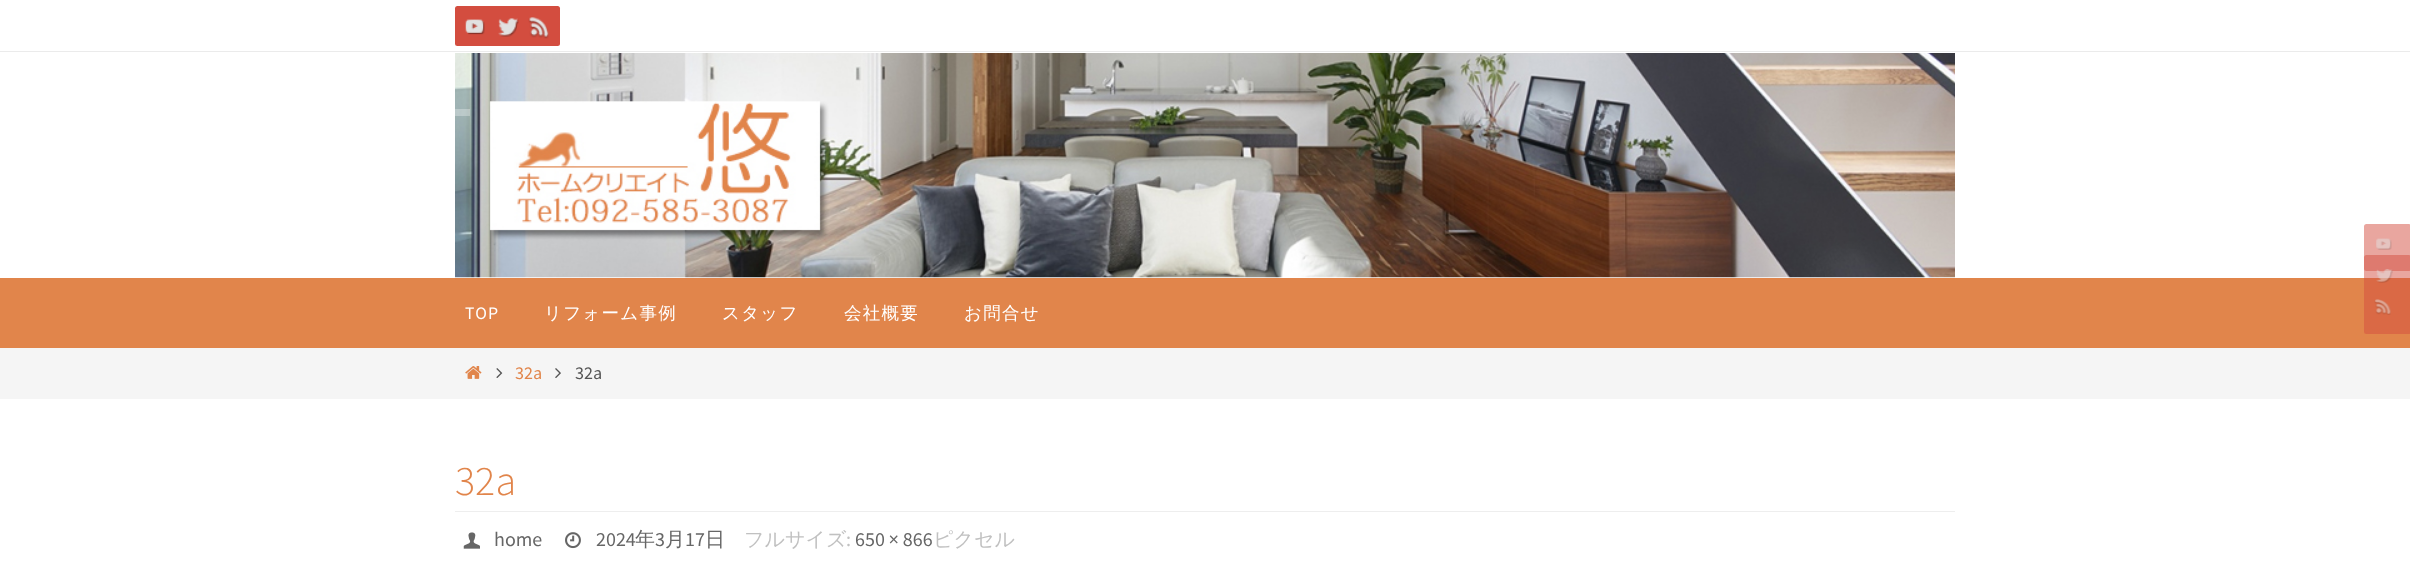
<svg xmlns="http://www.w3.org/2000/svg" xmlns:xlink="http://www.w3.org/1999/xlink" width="2410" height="561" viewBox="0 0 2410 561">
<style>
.cls-1{font:17.5px Source Sans Pro;letter-spacing:1.25px;fill:#ffffff}
.cls-2{font:500 17.5px WenQuanYi Zen Hei;letter-spacing:1.25px;fill:#ffffff}
.cls-3{font:18px Source Sans Pro;fill:#e1854b}
.cls-4{font:18px Source Sans Pro;fill:#555555}
.cls-5{font:300 42px Source Sans Pro;fill:#e1854b}
.cls-6{font:20px Source Sans Pro;fill:#666666}
.cls-7{font:500 20px WenQuanYi Zen Hei;fill:#666666}
.cls-8{font:500 20px WenQuanYi Zen Hei;fill:#c1c1c1}
.cls-9{font:20px Source Sans Pro;fill:#c1c1c1}
</style>
<rect width="100%" height="100%" fill="#ffffff"/>
<rect fill="#ebebeb" x="0" y="51" width="2410" height="1"/>
<rect fill="#d34d3f" x="455" y="6" width="40" height="40" rx="2.5"/>
<image xlink:href="image0.png" x="465" y="19" width="20" height="16"/>
<rect fill="#d34d3f" x="488" y="6" width="40" height="40" rx="2.5"/>
<image xlink:href="image1.png" x="498" y="18" width="21" height="19"/>
<rect fill="#d34d3f" x="520" y="6" width="40" height="40" rx="2.5"/>
<image xlink:href="image2.png" x="528" y="17" width="21" height="22"/>
<image xlink:href="image3.png" x="455" y="53" width="1500" height="225"/>
<rect fill="#ffffff" fill-opacity="0.3" x="455" y="109" width="15" height="7"/>
<rect fill="#e1854b" x="0" y="278" width="2410" height="70"/>
<rect fill="#e9a69f" x="2364" y="224" width="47" height="47" rx="2.5"/>
<image xlink:href="image4.png" x="2376" y="238" width="16" height="12"/>
<rect fill="#d34d3f" fill-opacity="0.5" x="2364" y="255" width="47" height="48" rx="2.5"/>
<image xlink:href="image5.png" x="2376" y="269" width="17" height="14"/>
<rect fill="#da6945" x="2364" y="286" width="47" height="48" rx="2.5"/>
<image xlink:href="image6.png" x="2374" y="299" width="17" height="16"/>
<rect fill="#f5f5f5" x="0" y="348" width="2410" height="51"/>
<image xlink:href="image7.png" x="465" y="366" width="17" height="13"/>
<image xlink:href="image8.png" x="496" y="368" width="7" height="10"/>
<image xlink:href="image9.png" x="555" y="368" width="6" height="10"/>
<rect fill="#eeeeee" x="455" y="511" width="1500" height="1"/>
<image xlink:href="image10.png" x="463" y="532" width="17" height="17"/>
<image xlink:href="image11.png" x="565" y="532" width="16" height="17"/>
<text class="cls-1" x="465" y="319">TOP</text>
<text class="cls-2" x="544" y="319">リフォーム事例</text>
<text class="cls-2" x="722" y="319">スタッフ</text>
<text class="cls-2" x="844" y="319">会社概要</text>
<text class="cls-2" x="964" y="319">お問合せ</text>
<text class="cls-3" x="515" y="379">32a</text>
<text class="cls-4" x="575" y="379">32a</text>
<text class="cls-5" x="455" y="495">32a</text>
<text class="cls-6" x="494" y="546">home</text>
<text class="cls-6" x="596" y="546">2024</text>
<text class="cls-7" x="635" y="546">年</text>
<text class="cls-6" x="655" y="546">3</text>
<text class="cls-7" x="665" y="546">月</text>
<text class="cls-6" x="685" y="546">17</text>
<text class="cls-7" x="705" y="546">日</text>
<text class="cls-8" x="744" y="546">フルサイズ</text>
<text class="cls-9" x="846" y="546">:</text>
<text class="cls-6" x="855" y="546">650 × 866</text>
<text class="cls-8" x="933" y="546">ピクセル</text>
</svg>
